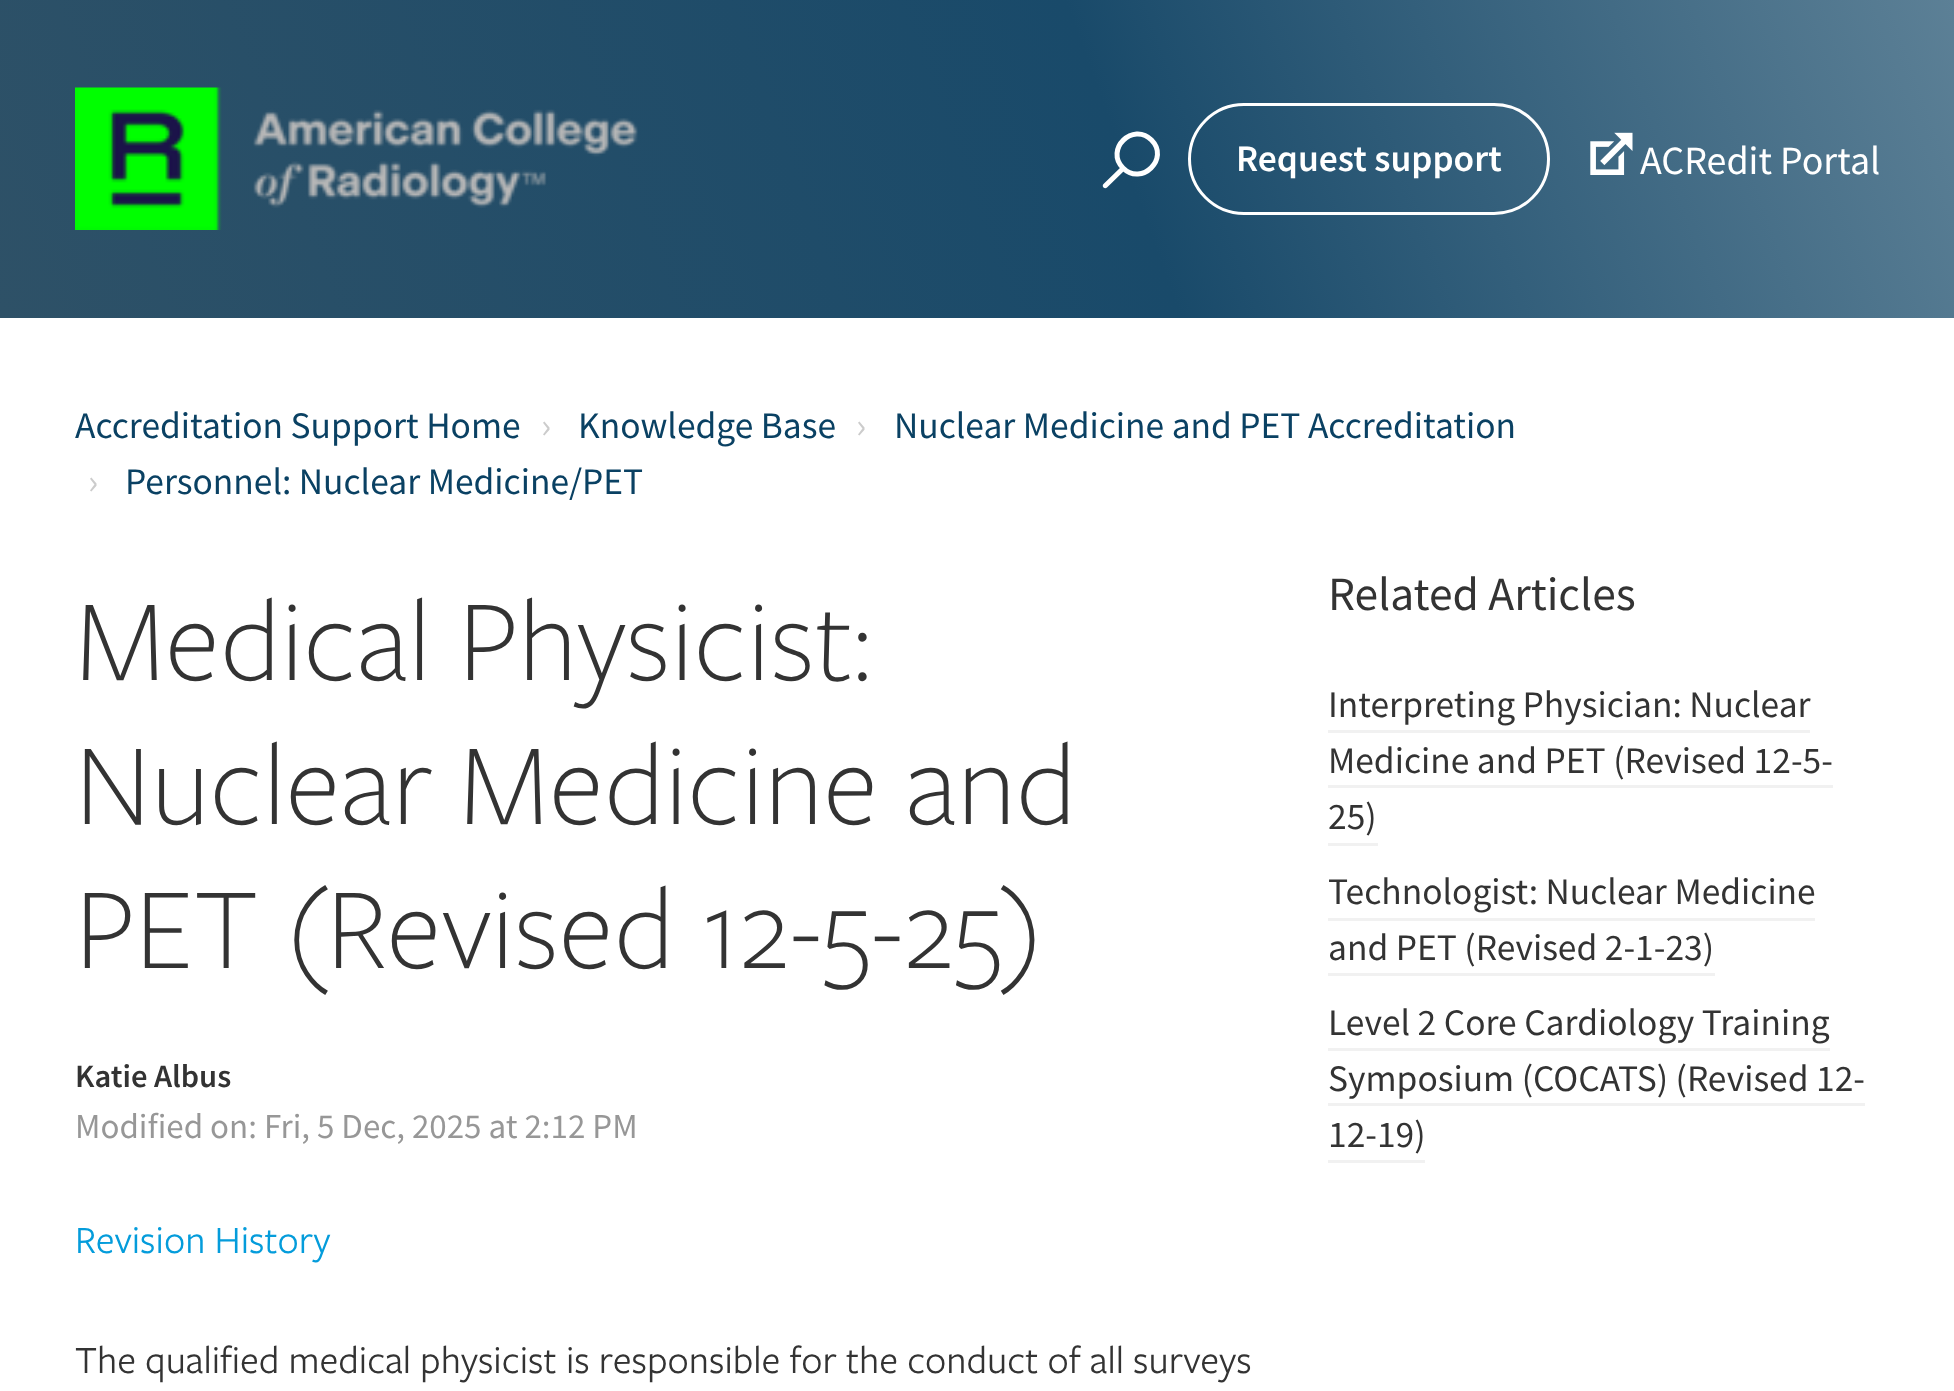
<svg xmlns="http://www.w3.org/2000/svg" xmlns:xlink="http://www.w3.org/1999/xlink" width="1954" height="1391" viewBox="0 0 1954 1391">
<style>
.cls-1{font:600 37.5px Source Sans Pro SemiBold;fill:#ffffff}
.cls-2{font:40px Source Sans Pro;fill:#ffffff}
.cls-3{font:37.5px Source Sans Pro;fill:#0a4163}
.cls-4{font:37.5px Source Sans Pro;fill:#cccccc}
.cls-5{font:300 120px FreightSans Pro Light;fill:#333333}
.cls-6{font:600 32.5px Source Sans Pro SemiBold;fill:#333333}
.cls-7{font:35px Source Sans Pro;fill:#979797}
.cls-8{font:40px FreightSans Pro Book;fill:#049cdb}
.cls-9{font:40px FreightSans Pro Book;fill:#333333}
.cls-10{font:47.5px Source Sans Pro;fill:#333333}
.cls-11{font:37.5px Source Sans Pro;fill:#333333}
</style>
<defs>
<linearGradient id="g1" gradientUnits="userSpaceOnUse" x1="1892" y1="-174" x2="63" y2="491"><stop offset="0" stop-color="#5c8096"/><stop offset="0.43" stop-color="#194a6a"/><stop offset="1" stop-color="#2e5167"/></linearGradient>
</defs>
<rect width="100%" height="100%" fill="#ffffff"/>
<rect fill="url(#g1)" x="0" y="0" width="1954" height="318"/>
<image xlink:href="image0.png" x="75" y="87" width="563" height="143"/>
<path fill="none" stroke="#ffffff" stroke-width="5" d="M1151.5 140C1170 158.5 1141.5 186.5 1123 168C1104.5 149.5 1133 121.5 1151.5 140Z"/>
<path fill="#ffffff" d="M1121.5 166.5L1125 170L1107 187.5C1106 188.5 1104.5 188.5 1103.5 187.5C1102.5 186.5 1102.5 185 1103.5 184Z"/>
<rect fill="none" stroke="#ffffff" stroke-width="3" x="1189.5" y="104.5" width="359" height="109" rx="54.5"/>
<image xlink:href="image1.png" x="1590" y="132" width="43" height="43"/>
<rect fill="#f1f1f1" x="1328" y="730" width="482" height="3"/>
<rect fill="#f1f1f1" x="1328" y="785" width="505" height="3"/>
<rect fill="#f1f1f1" x="1328" y="843" width="50" height="3"/>
<rect fill="#f1f1f1" x="1328" y="918" width="487" height="3"/>
<rect fill="#f1f1f1" x="1328" y="973" width="387" height="3"/>
<rect fill="#f1f1f1" x="1328" y="1048" width="502" height="3"/>
<rect fill="#f1f1f1" x="1328" y="1103" width="537" height="3"/>
<rect fill="#f1f1f1" x="1328" y="1160" width="97" height="3"/>
<text class="cls-1" x="1236" y="171">Request support</text>
<text class="cls-2" x="1640" y="174">ACRedit Portal</text>
<text class="cls-3" x="75" y="438">Accreditation Support Home</text>
<text class="cls-4" x="541" y="438">›</text>
<text class="cls-3" x="578" y="438">Knowledge Base</text>
<text class="cls-4" x="856" y="438">›</text>
<text class="cls-3" x="894" y="438">Nuclear Medicine and PET Accreditation</text>
<text class="cls-4" x="88" y="494">›</text>
<text class="cls-3" x="125" y="494">Personnel: Nuclear Medicine/PET</text>
<text class="cls-5"><tspan x="75" y="680">Medical Physicist:</tspan><tspan x="75" y="824">Nuclear Medicine and</tspan><tspan x="75" y="968">PET (Revised 12-5-25)</tspan></text>
<text class="cls-6" x="75" y="1087">Katie Albus</text>
<text class="cls-7" x="75" y="1138">Modified on: Fri, 5 Dec, 2025 at 2:12 PM</text>
<text class="cls-8" x="75" y="1253">Revision History</text>
<text class="cls-9" x="75" y="1373">The qualified medical physicist is responsible for the conduct of all surveys</text>
<text class="cls-10" x="1328" y="610">Related Articles</text>
<text class="cls-11"><tspan x="1328" y="717">Interpreting Physician: Nuclear</tspan><tspan x="1328" y="773">Medicine and PET (Revised 12-5-</tspan><tspan x="1328" y="829">25)</tspan></text>
<text class="cls-11"><tspan x="1328" y="904">Technologist: Nuclear Medicine</tspan><tspan x="1328" y="960">and PET (Revised 2-1-23)</tspan></text>
<text class="cls-11"><tspan x="1328" y="1035">Level 2 Core Cardiology Training</tspan><tspan x="1328" y="1091">Symposium (COCATS) (Revised 12-</tspan><tspan x="1328" y="1147">12-19)</tspan></text>
</svg>
